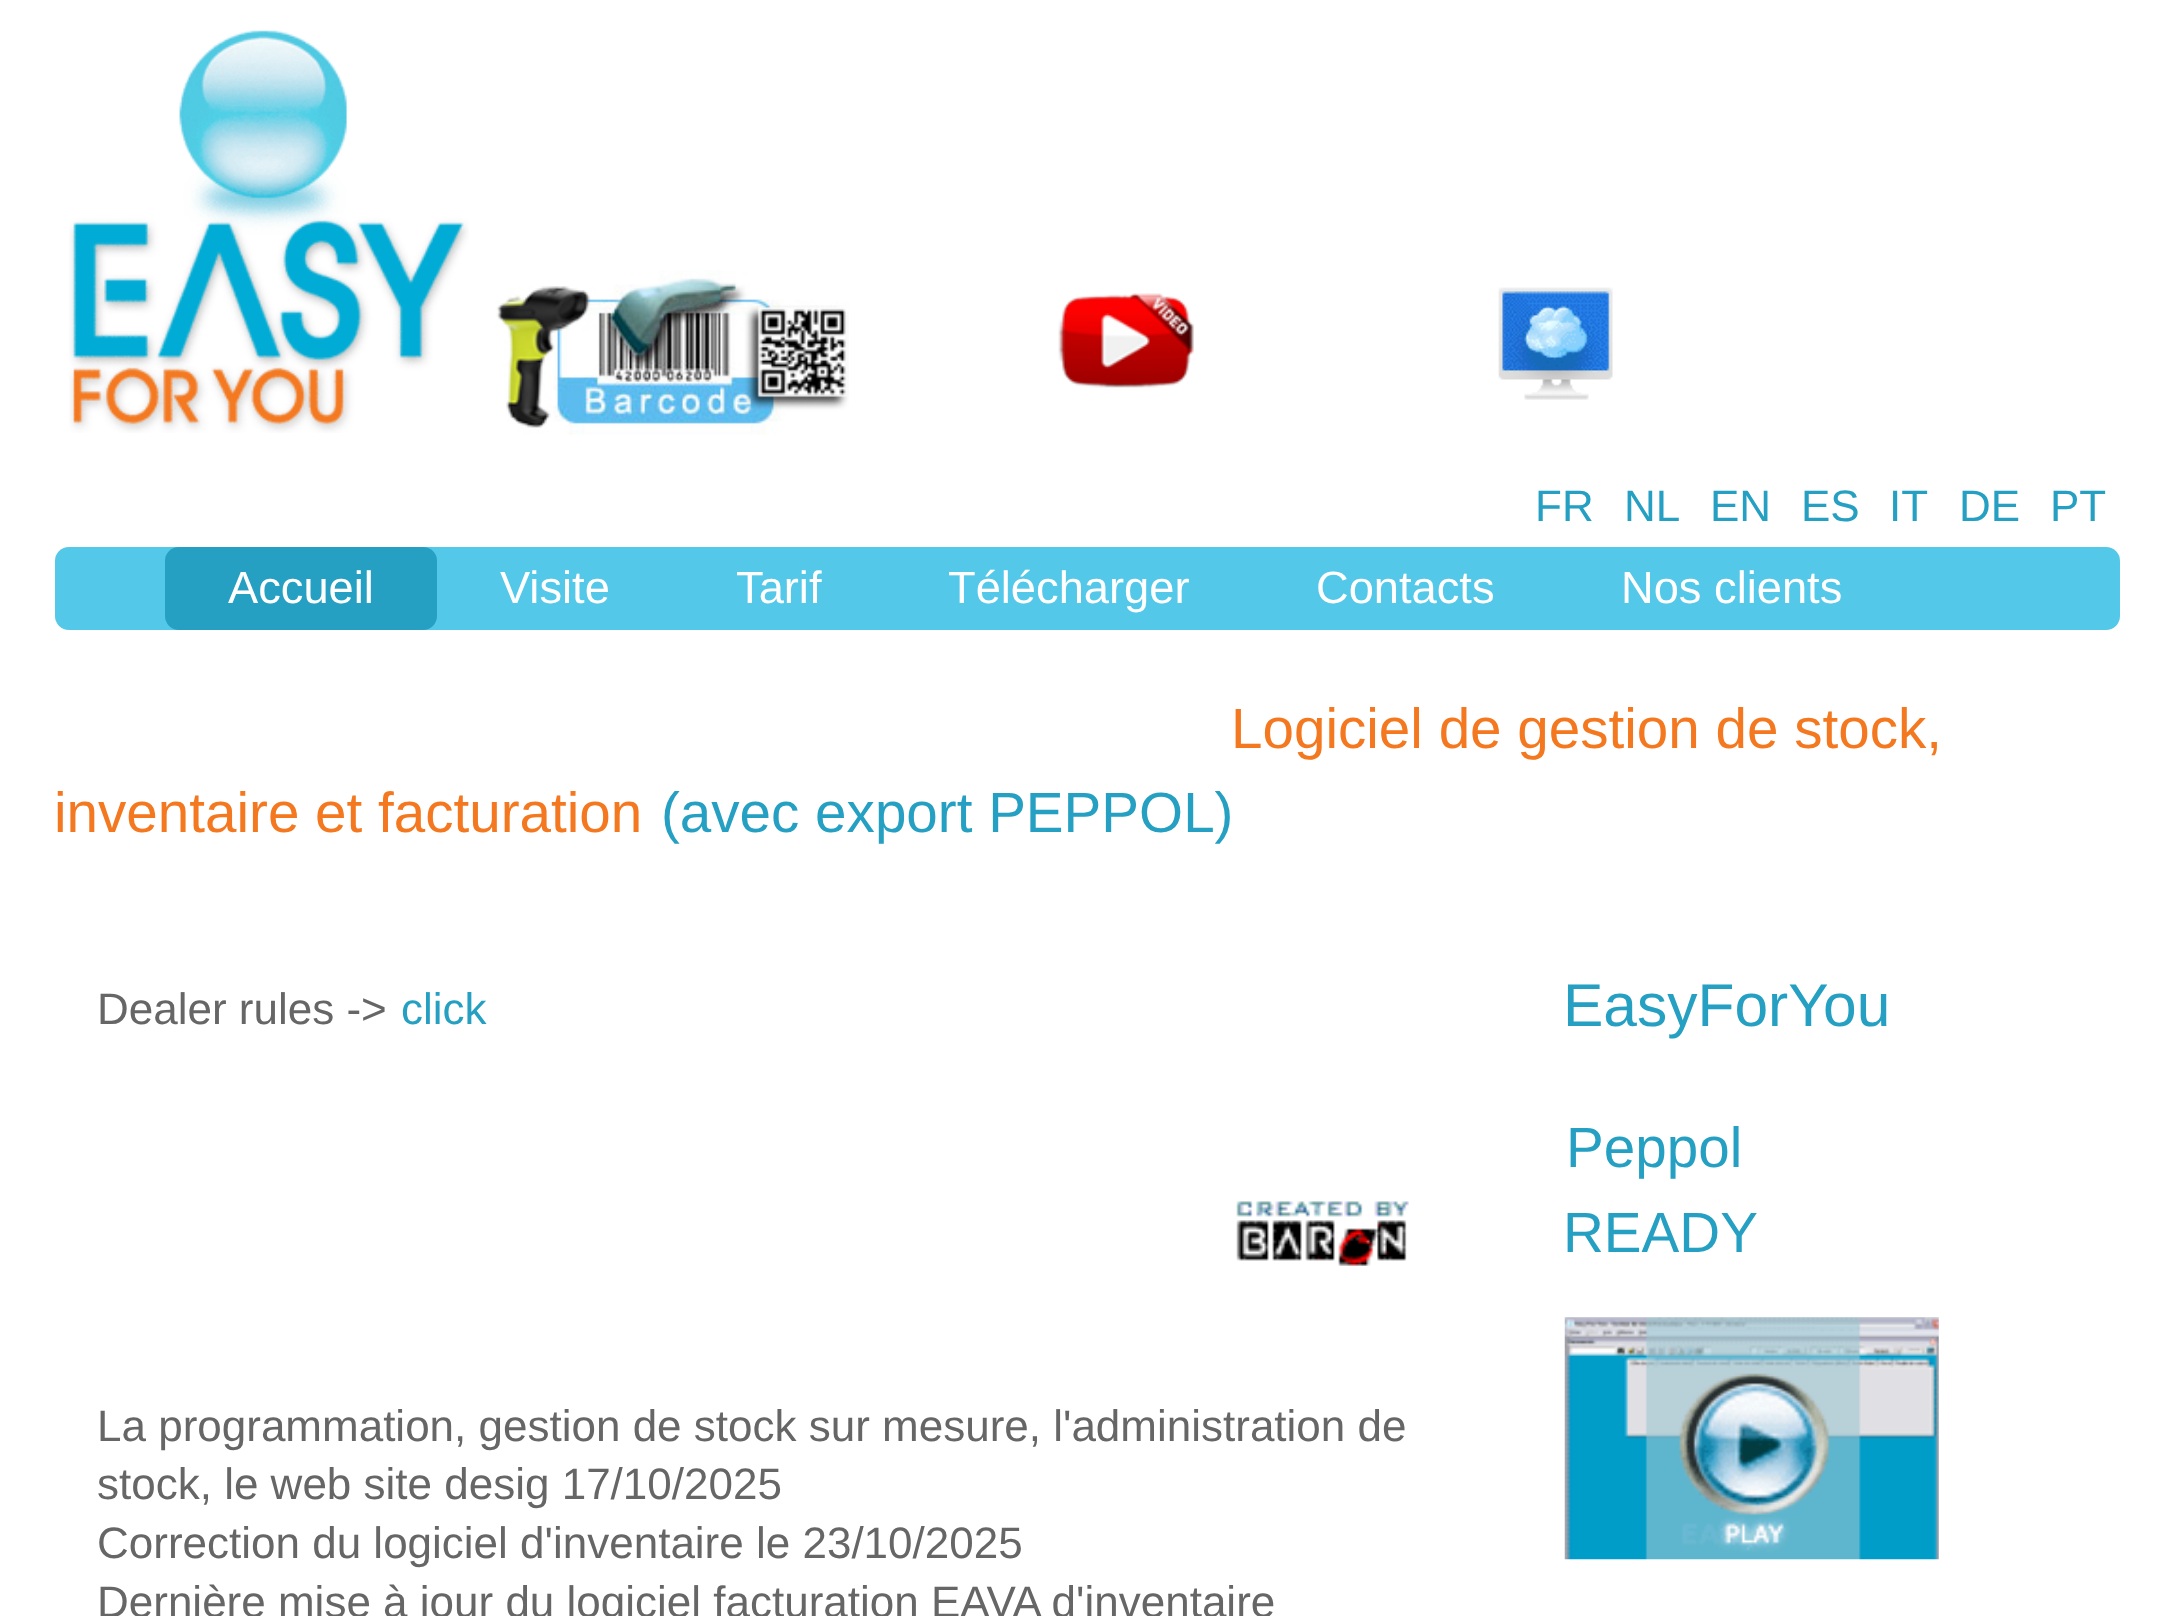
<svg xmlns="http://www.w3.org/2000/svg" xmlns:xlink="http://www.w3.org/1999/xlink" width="2173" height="1616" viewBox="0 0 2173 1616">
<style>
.cls-1{font:44px Liberation Sans;fill:#25a0c2}
.cls-2{font:45.25px Liberation Sans;fill:#ffffff}
.cls-3{font:56.6px Liberation Sans;fill:#f4781f}
.cls-4{font:56.6px Liberation Sans;fill:#25a0c2}
.cls-5{font:44px Liberation Sans;fill:#666666}
.cls-6{font:60.5px Liberation Sans;fill:#25a0c2}
</style>
<rect width="100%" height="100%" fill="#ffffff"/>
<image xlink:href="image0.png" x="69" y="30" width="400" height="403"/>
<image xlink:href="image1.png" x="495" y="270" width="354" height="165"/>
<image xlink:href="image2.png" x="1058" y="293" width="136" height="95"/>
<image xlink:href="image3.png" x="1498" y="287" width="115" height="113"/>
<rect fill="#54c8e8" x="55" y="547" width="2065" height="83" rx="14"/>
<rect fill="#25a0c2" x="165" y="547" width="272" height="83" rx="14"/>
<image xlink:href="image4.png" x="1236" y="1201" width="173" height="65"/>
<image xlink:href="image5.png" x="1564" y="1317" width="375" height="243"/>
<text class="cls-1" x="1535" y="521">FR</text>
<text class="cls-1" x="1624" y="521">NL</text>
<text class="cls-1" x="1710" y="521">EN</text>
<text class="cls-1" x="1801" y="521">ES</text>
<text class="cls-1" x="1889" y="521">IT</text>
<text class="cls-1" x="1959" y="521">DE</text>
<text class="cls-1" x="2050" y="521">PT</text>
<text class="cls-2" x="228" y="603">Accueil</text>
<text class="cls-2" x="500" y="603">Visite</text>
<text class="cls-2" x="736" y="603">Tarif</text>
<text class="cls-2" x="948" y="603">Télécharger</text>
<text class="cls-2" x="1316" y="603">Contacts</text>
<text class="cls-2" x="1621" y="603">Nos clients</text>
<text class="cls-3" x="1231" y="748">Logiciel de gestion de stock,</text>
<text class="cls-3" x="54" y="832">inventaire et facturation</text>
<text class="cls-4" x="661" y="832">(avec export PEPPOL)</text>
<text class="cls-5" x="97" y="1024">Dealer rules -&gt;</text>
<text class="cls-1" x="401" y="1024">click</text>
<text class="cls-5"><tspan x="97" y="1441">La programmation, gestion de stock sur mesure, l'administration de</tspan><tspan x="97" y="1499">stock, le web site desig 17/10/2025</tspan><tspan x="97" y="1558">Correction du logiciel d'inventaire le 23/10/2025</tspan><tspan x="97" y="1617">Dernière mise à jour du logiciel facturation EAVA d'inventaire</tspan></text>
<text class="cls-6" x="1563" y="1026">EasyForYou</text>
<text class="cls-4" x="1566" y="1167">Peppol</text>
<text class="cls-4" x="1563" y="1252">READY</text>
</svg>
